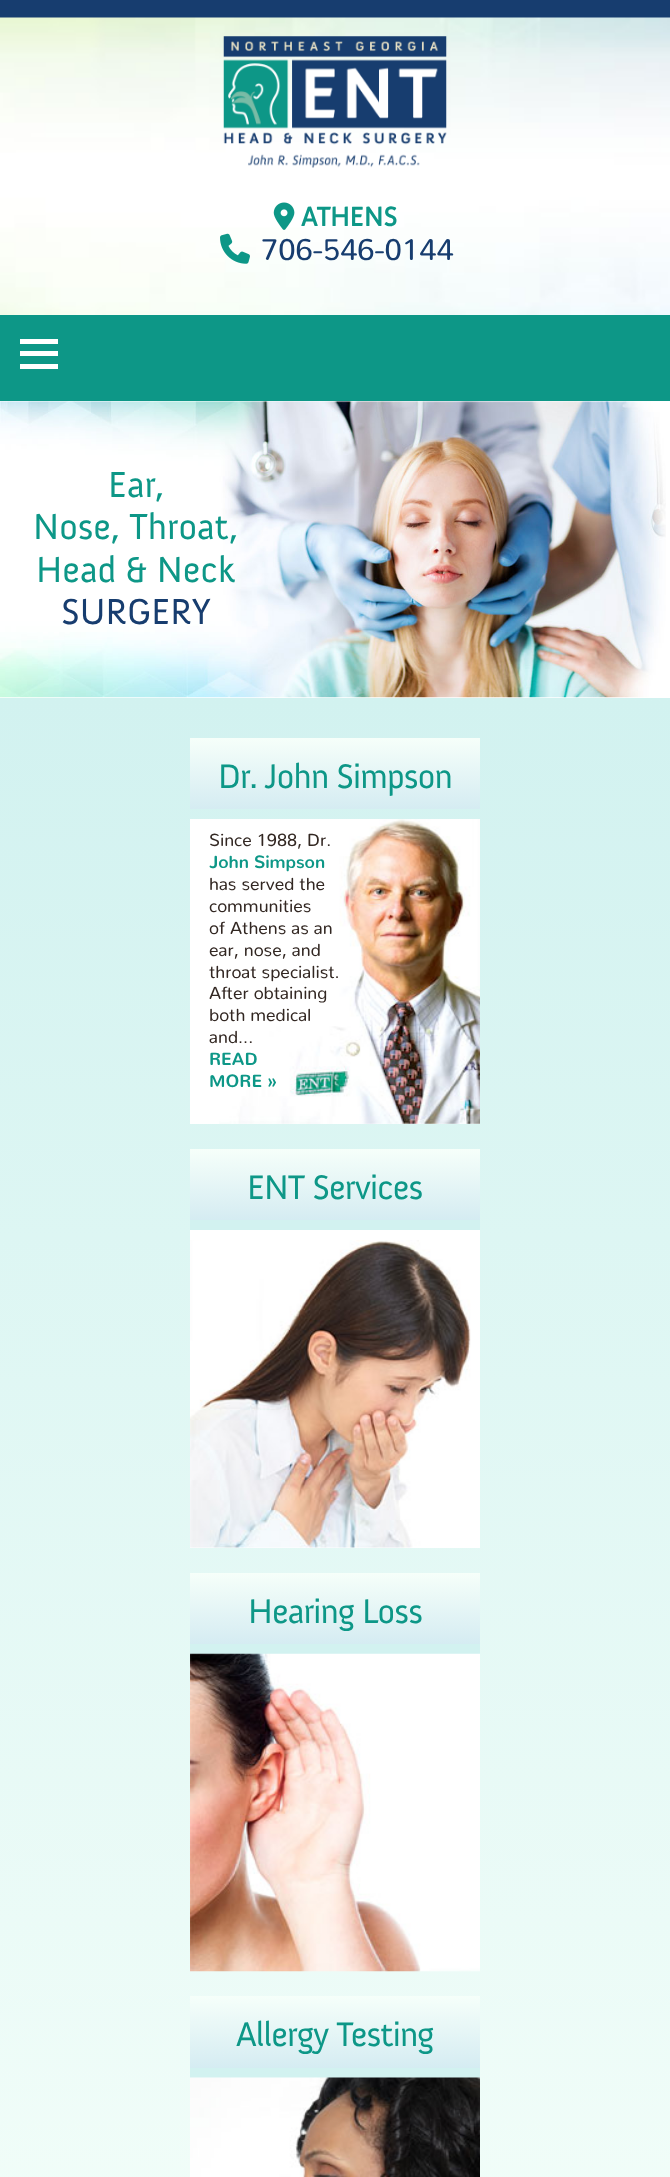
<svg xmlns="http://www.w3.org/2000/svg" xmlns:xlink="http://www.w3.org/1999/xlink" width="670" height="2177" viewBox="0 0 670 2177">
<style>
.cls-1{font:bold 27.5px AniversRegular;fill:#0d9787}
.cls-2{font:30px Nunito;fill:#173d6f}
.cls-3{font:37px AniversRegular;fill:#0d9787}
.cls-4{font:37px AniversRegular;fill:#173d6f}
.cls-5{font:35px AniversRegular;letter-spacing:-0.9px;fill:#0d9787}
.cls-6{font:17.5px Nunito;fill:#322722}
.cls-7{font:bold 17.5px Nunito;fill:#0d9787}
</style>
<defs>
<linearGradient id="g1" gradientUnits="userSpaceOnUse" x1="335" y1="698" x2="335" y2="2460"><stop offset="0" stop-color="#d2f2f0"/><stop offset="1" stop-color="#f6fffa"/></linearGradient>
<linearGradient id="g2" gradientUnits="userSpaceOnUse" x1="335" y1="738" x2="335" y2="809"><stop offset="0" stop-color="#f6fffa"/><stop offset="1" stop-color="#d5ecf2"/></linearGradient>
<linearGradient id="g3" gradientUnits="userSpaceOnUse" x1="335" y1="1149" x2="335" y2="1220"><stop offset="0" stop-color="#f6fffa"/><stop offset="1" stop-color="#d5ecf2"/></linearGradient>
<linearGradient id="g4" gradientUnits="userSpaceOnUse" x1="335" y1="1573" x2="335" y2="1644"><stop offset="0" stop-color="#f6fffa"/><stop offset="1" stop-color="#d5ecf2"/></linearGradient>
<linearGradient id="g5" gradientUnits="userSpaceOnUse" x1="335" y1="1996" x2="335" y2="2068"><stop offset="0" stop-color="#f6fffa"/><stop offset="1" stop-color="#d5ecf2"/></linearGradient>
</defs>
<rect width="100%" height="100%" fill="#ffffff"/>
<rect fill="#173d6f" x="0" y="0" width="670" height="18"/>
<image xlink:href="image0.png" x="0" y="17" width="670" height="298"/>
<image xlink:href="image1.png" x="223" y="36" width="224" height="132"/>
<image xlink:href="image2.png" x="273" y="202" width="22" height="28"/>
<image xlink:href="image3.png" x="220" y="233" width="30" height="31"/>
<rect fill="#0d9787" x="0" y="315" width="670" height="86"/>
<rect fill="#ffffff" x="20" y="351" width="38" height="5"/>
<rect fill="#ffffff" x="20" y="339" width="38" height="5"/>
<rect fill="#ffffff" x="20" y="364" width="38" height="5"/>
<image xlink:href="image4.png" x="0" y="401" width="666" height="297"/>
<rect fill="url(#g1)" x="0" y="698" width="670" height="1479"/>
<rect fill="#ffffff" x="190" y="819" width="290" height="305"/>
<image xlink:href="image5.png" x="219" y="819" width="261" height="305"/>
<rect fill="url(#g2)" x="190" y="738" width="290" height="71"/>
<rect fill="#ffffff" x="190" y="1230" width="290" height="318"/>
<rect fill="url(#g3)" x="190" y="1149" width="290" height="71"/>
<rect fill="#d2f2f0" x="190" y="1220" width="290" height="10"/>
<image xlink:href="image6.png" x="190" y="1240" width="281" height="308"/>
<rect fill="url(#g4)" x="190" y="1573" width="290" height="71"/>
<rect fill="#d2f2f0" x="190" y="1644" width="290" height="10"/>
<image xlink:href="image7.png" x="190" y="1653" width="290" height="319"/>
<rect fill="url(#g5)" x="190" y="1996" width="290" height="72"/>
<rect fill="#d2f2f0" x="190" y="2068" width="290" height="10"/>
<image xlink:href="image8.png" x="190" y="2077" width="290" height="100"/>
<text class="cls-1" x="301" y="226">ATHENS</text>
<text class="cls-2" x="261" y="260">706-546-0144</text>
<text class="cls-3" x="108" y="497">Ear,</text>
<text class="cls-3" x="33" y="539">Nose, Throat,</text>
<text class="cls-3" x="36" y="582">Head &amp; Neck</text>
<text class="cls-4" x="61" y="624">SURGERY</text>
<text class="cls-5" x="218" y="788">Dr. John Simpson</text>
<text class="cls-6" x="209" y="846">Since 1988, Dr.</text>
<text class="cls-7" x="209" y="868">John Simpson</text>
<text class="cls-6"><tspan x="209" y="890">has served the</tspan><tspan x="209" y="912">communities</tspan><tspan x="209" y="934">of Athens as an</tspan><tspan x="209" y="956">ear, nose, and</tspan><tspan x="209" y="978">throat specialist.</tspan><tspan x="209" y="999">After obtaining</tspan><tspan x="209" y="1021">both medical</tspan><tspan x="209" y="1043">and...</tspan></text>
<text class="cls-7"><tspan x="209" y="1065">READ</tspan><tspan x="209" y="1087">MORE »</tspan></text>
<text class="cls-5" x="247" y="1199">ENT Services</text>
<text class="cls-5" x="248" y="1623">Hearing Loss</text>
<text class="cls-5" x="236" y="2046">Allergy Testing</text>
</svg>
